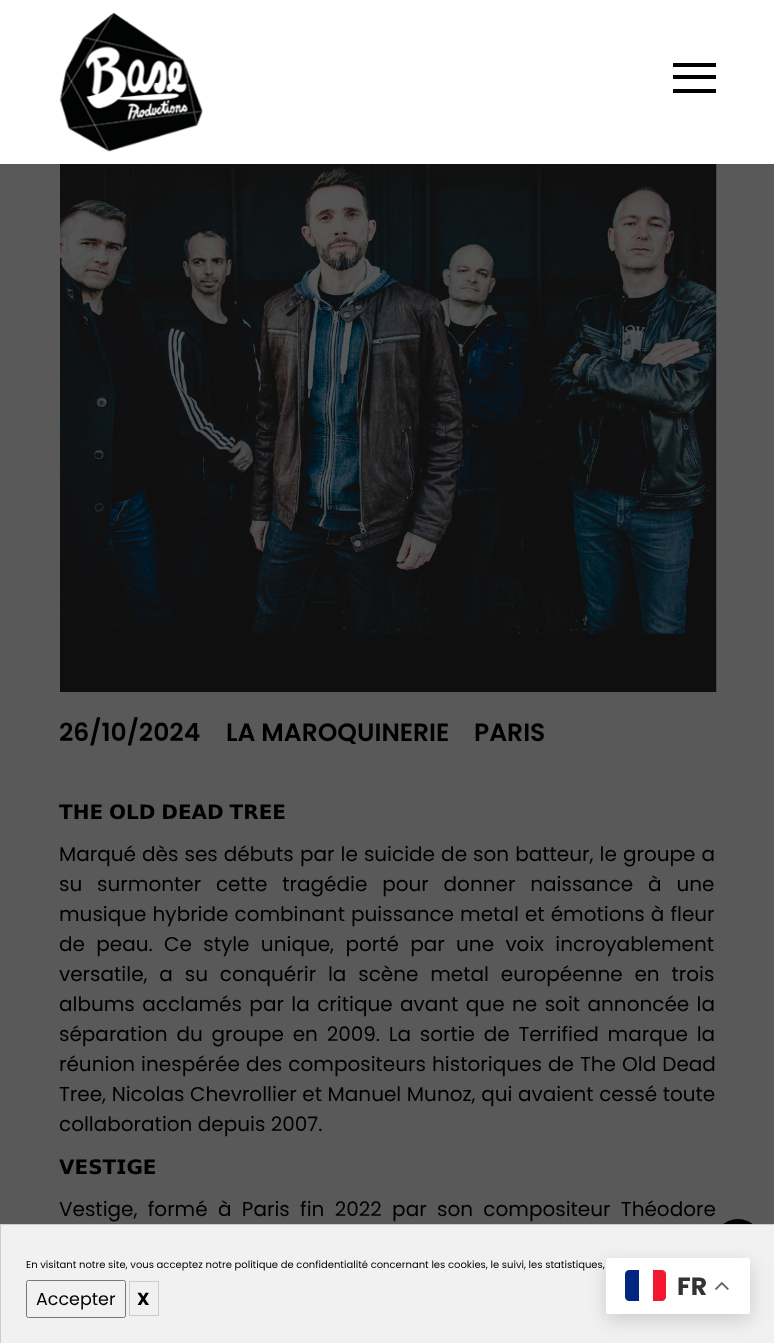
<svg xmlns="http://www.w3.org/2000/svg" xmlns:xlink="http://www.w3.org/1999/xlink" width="774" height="1343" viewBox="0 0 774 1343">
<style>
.cls-1{font:600 25px Poppins;fill:#000000}
.cls-2{font:bold 20px DejaVu Sans;fill:#000000}
.cls-3{font:20px Poppins;fill:#000000}
.cls-4{font:10px Poppins;fill:#000000}
.cls-5{font:17.5px Poppins;fill:#000000}
.cls-6{font:bold 17.5px Poppins;fill:#000000}
.cls-7{font:bold 25px Poppins;fill:#333333}
</style>
<rect width="100%" height="100%" fill="#595959"/>
<rect fill="#ffffff" x="0" y="0" width="774" height="164"/>
<image xlink:href="image0.png" x="59" y="12" width="144" height="140"/>
<rect fill="#000000" x="673" y="63" width="43" height="4"/>
<rect fill="#000000" x="673" y="75" width="43" height="4"/>
<rect fill="#000000" x="673" y="89" width="43" height="4"/>
<image xlink:href="image1.png" x="60" y="164" width="657" height="528"/>
<circle fill="#000000" cx="738" cy="1244" r="25"/>
<rect fill="#f1f1f1" stroke="#cccccc" x="0.5" y="1224.5" width="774" height="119"/>
<rect fill="none" stroke="#767676" x="26.5" y="1280.5" width="99" height="37" rx="2"/>
<rect fill="none" stroke="#cccccc" x="129.5" y="1281.5" width="29" height="34"/>
<rect fill="#000000" fill-opacity="0.15" filter="blur(9.5px)" x="606" y="1264" width="144" height="56" rx="2.5"/>
<rect fill="#ffffff" x="606" y="1258" width="144" height="56" rx="2.5"/>
<path fill="#00267f" d="M629 1270H639V1301H629C627 1301 625 1299 625 1297V1274C625 1272 627 1270 629 1270Z"/>
<path fill="#f31830" d="M653 1270H662C664 1270 666 1272 666 1274V1297C666 1299 664 1301 662 1301H653Z"/>
<image xlink:href="image2.png" x="715" y="1282" width="14" height="8"/>
<text class="cls-1" x="59" y="741">26/10/2024</text>
<text class="cls-1" x="226" y="741">LA MAROQUINERIE</text>
<text class="cls-1" x="474" y="741">PARIS</text>
<text class="cls-2" x="59" y="819" word-spacing="-1">𝗧𝗛𝗘 𝗢𝗟𝗗 𝗗𝗘𝗔𝗗 𝗧𝗥𝗘𝗘</text>
<text class="cls-3"><tspan x="59" y="861" word-spacing="0.75">Marqué dès ses débuts par le suicide de son batteur, le groupe a</tspan><tspan x="59" y="891" word-spacing="9.5">su surmonter cette tragédie pour donner naissance à une</tspan><tspan x="59" y="921" word-spacing="0.75">musique hybride combinant puissance metal et émotions à fleur</tspan><tspan x="59" y="951" word-spacing="6">de peau. Ce style unique, porté par une voix incroyablement</tspan><tspan x="59" y="981" word-spacing="6.5">versatile, a su conquérir la scène metal européenne en trois</tspan><tspan x="59" y="1011" word-spacing="2.1">albums acclamés par la critique avant que ne soit annoncée la</tspan><tspan x="59" y="1041" word-spacing="3.4">séparation du groupe en 2009. La sortie de Terrified marque la</tspan><tspan x="59" y="1071" word-spacing="0.75">réunion inespérée des compositeurs historiques de The Old Dead</tspan><tspan x="59" y="1101" word-spacing="0.25">Tree, Nicolas Chevrollier et Manuel Munoz, qui avaient cessé toute</tspan><tspan x="59" y="1131">collaboration depuis 2007.</tspan></text>
<text class="cls-2" x="59" y="1174">𝗩𝗘𝗦𝗧𝗜𝗚𝗘</text>
<text class="cls-3" x="59" y="1216" word-spacing="5">Vestige, formé à Paris fin 2022 par son compositeur Théodore</text>
<text class="cls-4" x="26" y="1268">En visitant notre site, vous acceptez notre politique de confidentialité concernant les cookies, le suivi, les statistiques,</text>
<text class="cls-5" x="36" y="1305">Accepter</text>
<text class="cls-6" x="137" y="1305">X</text>
<text class="cls-7" x="677" y="1295">FR</text>
</svg>
